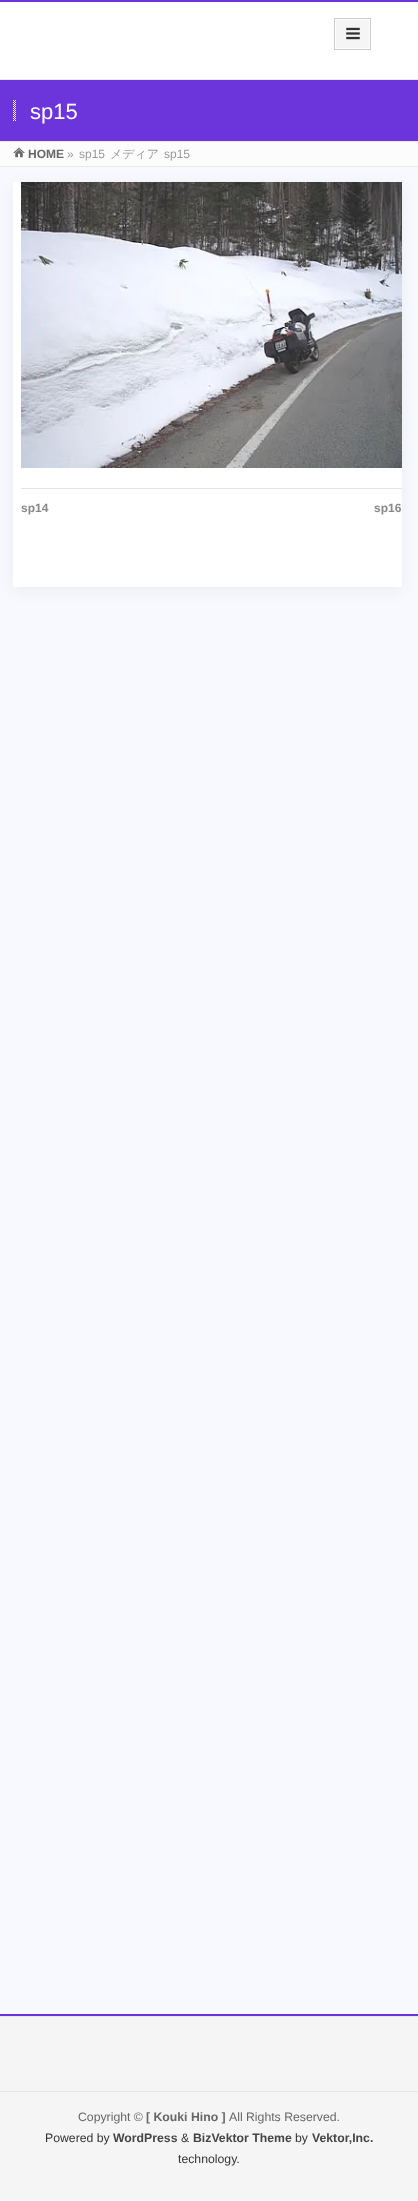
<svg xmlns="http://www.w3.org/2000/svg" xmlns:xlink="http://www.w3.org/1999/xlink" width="418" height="2201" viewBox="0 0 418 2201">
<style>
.cls-1{font:22px Liberation Sans;fill:#ffffff}
.cls-2{font:bold 12px Liberation Sans;fill:#666666}
.cls-3{font:12px Liberation Sans;fill:#999999}
.cls-4{font:500 12px WenQuanYi Zen Hei;fill:#999999}
.cls-5{font:bold 12px Liberation Sans;fill:#888888}
.cls-6{font:12.25px Liberation Sans;fill:#666666}
.cls-7{font:bold 12.25px Liberation Sans;fill:#666666}
.cls-8{font:12.25px Liberation Sans;fill:#333333}
.cls-9{font:bold 12.25px Liberation Sans;fill:#454545}
</style>
<rect width="100%" height="100%" fill="#f7f9ff"/>
<rect fill="#6c34db" x="0" y="0" width="418" height="2"/>
<rect fill="#ffffff" x="0" y="2" width="418" height="77"/>
<rect fill="#f5f5f5" x="336" y="20" width="33" height="28"/>
<rect fill="none" stroke="#cccccc" x="334.5" y="18.5" width="36" height="31"/>
<image xlink:href="image0.png" x="346" y="27" width="14" height="13"/>
<rect fill="#6c34db" x="0" y="80" width="418" height="61"/>
<rect fill="#e9e9e9" x="0" y="79" width="418" height="1"/>
<rect fill="#e9e9e9" x="0" y="141" width="418" height="1"/>
<image xlink:href="image1.png" x="13" y="100" width="3" height="21"/>
<rect fill="#e9e9e9" x="0" y="166" width="418" height="1"/>
<rect fill="#000000" fill-opacity="0.05" filter="blur(8px)" x="13" y="186" width="389" height="405"/>
<rect fill="#fcfcfc" x="0" y="142" width="418" height="24"/>
<image xlink:href="image2.png" x="13" y="147" width="12" height="11"/>
<rect fill="#ffffff" x="13" y="182" width="389" height="405"/>
<image xlink:href="image3.png" x="21" y="182" width="381" height="286"/>
<rect fill="#e5e5e5" x="21" y="488" width="381" height="1"/>
<rect fill="#6c34db" x="0" y="2014" width="418" height="2"/>
<rect fill="#e9e9e9" x="0" y="2016" width="418" height="1"/>
<rect fill="#f5f5f5" x="0" y="2017" width="418" height="74"/>
<rect fill="#f5f5f5" x="0" y="2092" width="418" height="108"/>
<rect fill="#e5e5e5" x="0" y="2091" width="418" height="1"/>
<text class="cls-1" x="30" y="119">sp15</text>
<text class="cls-2" x="28" y="158">HOME</text>
<text class="cls-3" x="67" y="158">»</text>
<text class="cls-3" x="79" y="158">sp15</text>
<text class="cls-4" x="110" y="158">メディア</text>
<text class="cls-3" x="164" y="158">sp15</text>
<text class="cls-5" x="21" y="512">sp14</text>
<text class="cls-5" x="374" y="512">sp16</text>
<text class="cls-6" x="78" y="2121">Copyright ©</text>
<text class="cls-7" x="146" y="2121">[ Kouki Hino ]</text>
<text class="cls-6" x="229" y="2121">All Rights Reserved.</text>
<text class="cls-8" x="45" y="2142">Powered by</text>
<text class="cls-9" x="113" y="2142">WordPress</text>
<text class="cls-8" x="181" y="2142">&amp;</text>
<text class="cls-9" x="193" y="2142">BizVektor Theme</text>
<text class="cls-8" x="295" y="2142">by</text>
<text class="cls-9" x="312" y="2142">Vektor,Inc.</text>
<text class="cls-8" x="178" y="2163">technology.</text>
</svg>
